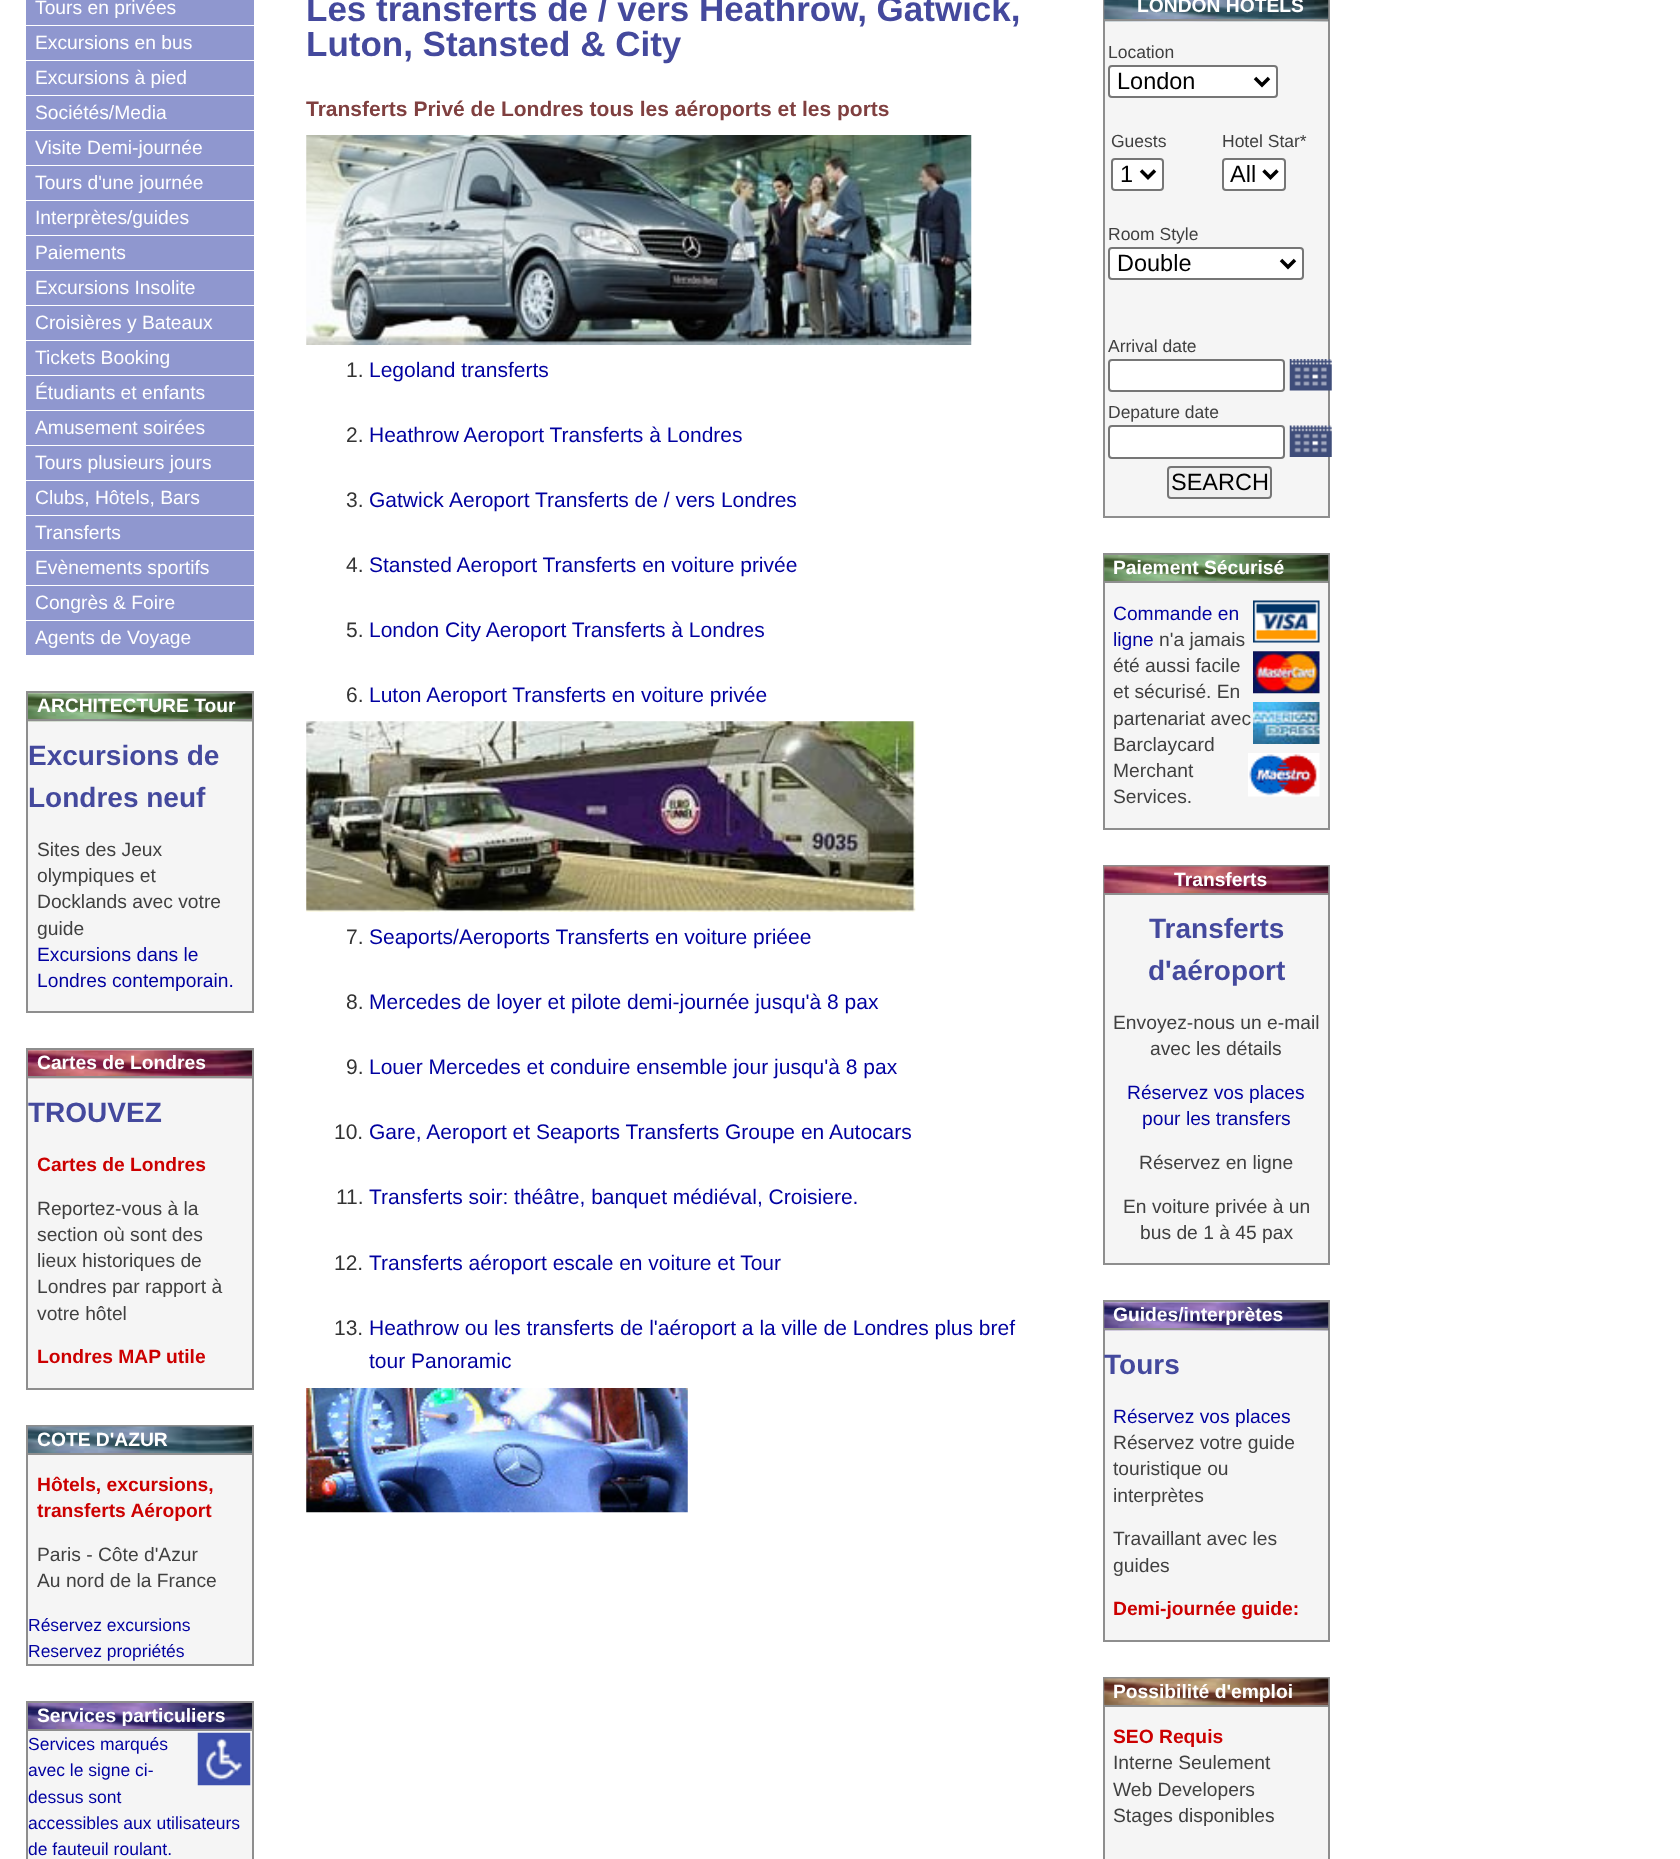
<svg xmlns="http://www.w3.org/2000/svg" xmlns:xlink="http://www.w3.org/1999/xlink" width="1680" height="1859" viewBox="0 0 1680 1859">
<style>
.cls-1{font:19.25px Liberation Sans;fill:#ffffff}
.cls-2{font:bold 19.25px Liberation Sans;fill:#ffffff}
.cls-3{font:bold 28px Liberation Sans;fill:#44499d}
.cls-4{font:19.25px Liberation Sans;fill:#404040}
.cls-5{font:19.25px Liberation Sans;fill:#0000a0}
.cls-6{font:bold 19.25px Liberation Sans;fill:#cc0000}
.cls-7{font:17.5px Liberation Sans;fill:#0000a0}
.cls-8{font:bold 35px Liberation Sans;fill:#44499d}
.cls-9{font:bold 21px Liberation Sans;fill:#804040}
.cls-10{font:21px Liberation Sans;fill:#333333}
.cls-11{font:21px Liberation Sans;fill:#0000a0}
.cls-12{font:17.5px Liberation Sans;fill:#404040}
.cls-13{font:23.5px Liberation Sans;fill:#000000}
</style>
<rect width="100%" height="100%" fill="#ffffff"/>
<rect fill="#8f97cf" x="26" y="0" width="228" height="25"/>
<rect fill="#8f97cf" x="26" y="26" width="228" height="34"/>
<rect fill="#8f97cf" x="26" y="61" width="228" height="34"/>
<rect fill="#8f97cf" x="26" y="96" width="228" height="34"/>
<rect fill="#8f97cf" x="26" y="131" width="228" height="34"/>
<rect fill="#8f97cf" x="26" y="166" width="228" height="34"/>
<rect fill="#8f97cf" x="26" y="201" width="228" height="34"/>
<rect fill="#8f97cf" x="26" y="236" width="228" height="34"/>
<rect fill="#8f97cf" x="26" y="271" width="228" height="34"/>
<rect fill="#8f97cf" x="26" y="306" width="228" height="34"/>
<rect fill="#8f97cf" x="26" y="341" width="228" height="34"/>
<rect fill="#8f97cf" x="26" y="376" width="228" height="34"/>
<rect fill="#8f97cf" x="26" y="411" width="228" height="34"/>
<rect fill="#8f97cf" x="26" y="446" width="228" height="34"/>
<rect fill="#8f97cf" x="26" y="481" width="228" height="34"/>
<rect fill="#8f97cf" x="26" y="516" width="228" height="34"/>
<rect fill="#8f97cf" x="26" y="551" width="228" height="34"/>
<rect fill="#8f97cf" x="26" y="586" width="228" height="34"/>
<rect fill="#8f97cf" x="26" y="621" width="228" height="34"/>
<rect fill="#f5f5f5" stroke="#8e8e8e" stroke-width="2" x="27" y="692" width="226" height="320"/>
<image xlink:href="image0.png" x="28" y="693" width="224" height="29"/>
<rect fill="#8e8e8e" x="28" y="719" width="224" height="2"/>
<rect fill="#f5f5f5" stroke="#8e8e8e" stroke-width="2" x="27" y="1049" width="226" height="340"/>
<image xlink:href="image1.png" x="28" y="1050" width="224" height="29"/>
<rect fill="#8e8e8e" x="28" y="1076" width="224" height="2"/>
<rect fill="#f5f5f5" x="28" y="1455" width="224" height="209"/>
<rect fill="none" stroke="#8e8e8e" stroke-width="2" x="27" y="1426" width="226" height="239"/>
<image xlink:href="image2.png" x="28" y="1426" width="224" height="27"/>
<rect fill="#8e8e8e" x="28" y="1453" width="224" height="2"/>
<rect fill="#f5f5f5" x="28" y="1731" width="224" height="128"/>
<rect fill="none" stroke="#8e8e8e" stroke-width="2" x="27" y="1702" width="226" height="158"/>
<image xlink:href="image3.png" x="28" y="1703" width="224" height="26"/>
<rect fill="#8e8e8e" x="28" y="1729" width="224" height="2"/>
<image xlink:href="image4.png" x="197" y="1732" width="54" height="54"/>
<image xlink:href="image5.png" x="306" y="135" width="666" height="210"/>
<image xlink:href="image6.png" x="306" y="721" width="610" height="191"/>
<image xlink:href="image7.png" x="306" y="1388" width="382" height="125"/>
<rect fill="#f5f5f5" x="1105" y="21" width="223" height="495"/>
<rect fill="none" stroke="#8e8e8e" stroke-width="2" x="1104" y="-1" width="225" height="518"/>
<image xlink:href="image8.png" x="1104" y="0" width="225" height="22"/>
<rect fill="#8e8e8e" x="1104" y="19" width="224" height="2"/>
<rect fill="#ffffff" stroke="#767676" stroke-width="2" x="1109" y="66" width="168" height="31" rx="3"/>
<path fill="none" stroke="#000000" stroke-width="3.5" d="M1255 78L1262 85L1269 78"/>
<rect fill="#ffffff" stroke="#767676" stroke-width="2" x="1112" y="159" width="51" height="31" rx="3"/>
<path fill="none" stroke="#000000" stroke-width="3.5" d="M1141 170.5L1148 177.5L1155 170.5"/>
<rect fill="#ffffff" stroke="#767676" stroke-width="2" x="1223" y="159" width="62" height="31" rx="3"/>
<path fill="none" stroke="#000000" stroke-width="3.5" d="M1263.5 170.5L1270.5 177.5L1277.5 170.5"/>
<rect fill="#ffffff" stroke="#767676" stroke-width="2" x="1109" y="248" width="194" height="31" rx="3"/>
<path fill="none" stroke="#000000" stroke-width="3.5" d="M1281 260L1288 267L1295 260"/>
<rect fill="#ffffff" stroke="#767676" stroke-width="2" x="1109" y="360" width="175" height="31" rx="3"/>
<image xlink:href="image9.png" x="1289" y="359" width="43" height="32"/>
<rect fill="#ffffff" stroke="#767676" stroke-width="2" x="1109" y="426" width="175" height="32" rx="3"/>
<image xlink:href="image10.png" x="1289" y="425" width="43" height="32"/>
<rect fill="#efefef" stroke="#767676" stroke-width="2" x="1168" y="467" width="103" height="31" rx="3"/>
<rect fill="#f5f5f5" x="1105" y="583" width="223" height="245"/>
<rect fill="none" stroke="#8e8e8e" stroke-width="2" x="1104" y="554" width="225" height="275"/>
<image xlink:href="image11.png" x="1104" y="555" width="225" height="28"/>
<rect fill="#8e8e8e" x="1104" y="581" width="224" height="2"/>
<image xlink:href="image12.png" x="1253" y="600" width="67" height="43"/>
<image xlink:href="image13.png" x="1253" y="651" width="67" height="43"/>
<image xlink:href="image14.png" x="1253" y="702" width="67" height="42"/>
<image xlink:href="image15.png" x="1248" y="753" width="72" height="44"/>
<rect fill="#f5f5f5" x="1105" y="895" width="223" height="368"/>
<rect fill="none" stroke="#8e8e8e" stroke-width="2" x="1104" y="866" width="225" height="398"/>
<image xlink:href="image16.png" x="1104" y="866" width="225" height="29"/>
<rect fill="#8e8e8e" x="1104" y="893" width="224" height="2"/>
<rect fill="#f5f5f5" stroke="#8e8e8e" stroke-width="2" x="1104" y="1301" width="225" height="340"/>
<image xlink:href="image17.png" x="1104" y="1302" width="225" height="29"/>
<rect fill="#8e8e8e" x="1104" y="1328" width="224" height="2"/>
<rect fill="#f5f5f5" x="1105" y="1707" width="223" height="152"/>
<rect fill="none" stroke="#8e8e8e" stroke-width="2" x="1104" y="1678" width="225" height="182"/>
<image xlink:href="image18.png" x="1104" y="1678" width="225" height="29"/>
<rect fill="#8e8e8e" x="1104" y="1705" width="224" height="2"/>
<text class="cls-1"><tspan x="35" y="14">Tours en privées</tspan><tspan x="35" y="49">Excursions en bus</tspan><tspan x="35" y="84">Excursions à pied</tspan><tspan x="35" y="119">Sociétés/Media</tspan><tspan x="35" y="154">Visite Demi-journée</tspan><tspan x="35" y="189">Tours d'une journée</tspan><tspan x="35" y="224">Interprètes/guides</tspan><tspan x="35" y="259">Paiements</tspan><tspan x="35" y="294">Excursions Insolite</tspan><tspan x="35" y="329">Croisières y Bateaux</tspan><tspan x="35" y="364">Tickets Booking</tspan><tspan x="35" y="399">Étudiants et enfants</tspan><tspan x="35" y="434">Amusement soirées</tspan><tspan x="35" y="469">Tours plusieurs jours</tspan><tspan x="35" y="504">Clubs, Hôtels, Bars</tspan><tspan x="35" y="539">Transferts</tspan><tspan x="35" y="574">Evènements sportifs</tspan><tspan x="35" y="609">Congrès &amp; Foire</tspan><tspan x="35" y="644">Agents de Voyage</tspan></text>
<text class="cls-2" x="37" y="712">ARCHITECTURE Tour</text>
<text class="cls-3"><tspan x="28" y="765">Excursions de</tspan><tspan x="28" y="807">Londres neuf</tspan></text>
<text class="cls-4"><tspan x="37" y="856">Sites des Jeux</tspan><tspan x="37" y="882">olympiques et</tspan><tspan x="37" y="908">Docklands avec votre</tspan><tspan x="37" y="935">guide</tspan></text>
<text class="cls-5"><tspan x="37" y="961">Excursions dans le</tspan><tspan x="37" y="987">Londres contemporain.</tspan></text>
<text class="cls-2" x="37" y="1069">Cartes de Londres</text>
<text class="cls-3" x="28" y="1122">TROUVEZ</text>
<text class="cls-6" x="37" y="1171">Cartes de Londres</text>
<text class="cls-4"><tspan x="37" y="1215">Reportez-vous à la</tspan><tspan x="37" y="1241">section où sont des</tspan><tspan x="37" y="1267">lieux historiques de</tspan><tspan x="37" y="1293">Londres par rapport à</tspan><tspan x="37" y="1320">votre hôtel</tspan></text>
<text class="cls-6" x="37" y="1363">Londres MAP utile</text>
<text class="cls-2" x="37" y="1446">COTE D'AZUR</text>
<text class="cls-6"><tspan x="37" y="1491">Hôtels, excursions,</tspan><tspan x="37" y="1517">transferts Aéroport</tspan></text>
<text class="cls-4"><tspan x="37" y="1561">Paris - Côte d'Azur</tspan><tspan x="37" y="1587">Au nord de la France</tspan></text>
<text class="cls-7"><tspan x="28" y="1631">Réservez excursions</tspan><tspan x="28" y="1657">Reservez propriétés</tspan></text>
<text class="cls-2" x="37" y="1722">Services particuliers</text>
<text class="cls-7"><tspan x="28" y="1750">Services marqués</tspan><tspan x="28" y="1776">avec le signe ci-</tspan><tspan x="28" y="1803">dessus sont</tspan><tspan x="28" y="1829">accessibles aux utilisateurs</tspan><tspan x="28" y="1855">de fauteuil roulant.</tspan></text>
<text class="cls-8"><tspan x="306" y="21">Les transferts de / vers Heathrow, Gatwick,</tspan><tspan x="306" y="56">Luton, Stansted &amp; City</tspan></text>
<text class="cls-9" x="306" y="116">Transferts Privé de Londres tous les aéroports et les ports</text>
<text class="cls-10" x="346" y="377">1.</text>
<text class="cls-11" x="369" y="377">Legoland transferts</text>
<text class="cls-10" x="346" y="442">2.</text>
<text class="cls-11" x="369" y="442">Heathrow Aeroport Transferts à Londres</text>
<text class="cls-10" x="346" y="507">3.</text>
<text class="cls-11" x="369" y="507">Gatwick</text>
<text class="cls-11" x="449" y="507">Aeroport Transferts de / vers Londres</text>
<text class="cls-10" x="346" y="572">4.</text>
<text class="cls-11" x="369" y="572">Stansted Aeroport Transferts en voiture privée</text>
<text class="cls-10" x="346" y="637">5.</text>
<text class="cls-11" x="369" y="637">London City Aeroport Transferts à Londres</text>
<text class="cls-10" x="346" y="702">6.</text>
<text class="cls-11" x="369" y="702">Luton Aeroport Transferts en voiture privée</text>
<text class="cls-10" x="346" y="944">7.</text>
<text class="cls-11" x="369" y="944">Seaports/Aeroports Transferts en voiture priéee</text>
<text class="cls-10" x="346" y="1009">8.</text>
<text class="cls-11" x="369" y="1009">Mercedes de loyer et pilote demi-journée jusqu'à 8 pax</text>
<text class="cls-10" x="346" y="1074">9.</text>
<text class="cls-11" x="369" y="1074">Louer Mercedes et conduire ensemble jour jusqu'à 8 pax</text>
<text class="cls-10" x="334" y="1139">10.</text>
<text class="cls-11" x="369" y="1139">Gare, Aeroport et Seaports Transferts Groupe en Autocars</text>
<text class="cls-10" x="336" y="1204">11.</text>
<text class="cls-11" x="369" y="1204">Transferts soir: théâtre, banquet médiéval, Croisiere.</text>
<text class="cls-10" x="334" y="1270">12.</text>
<text class="cls-11" x="369" y="1270">Transferts aéroport escale en voiture et Tour</text>
<text class="cls-10" x="334" y="1335">13.</text>
<text class="cls-11"><tspan x="369" y="1335">Heathrow ou les transferts de l'aéroport a la ville de Londres plus bref</tspan><tspan x="369" y="1368">tour Panoramic</tspan></text>
<text class="cls-2" x="1137" y="12">LONDON HOTELS</text>
<text class="cls-12" x="1108" y="58">Location</text>
<text class="cls-13" x="1117" y="89">London</text>
<text class="cls-12" x="1111" y="147">Guests</text>
<text class="cls-12" x="1222" y="147">Hotel Star*</text>
<text class="cls-13" x="1120" y="182">1</text>
<text class="cls-13" x="1230" y="182">All</text>
<text class="cls-12" x="1108" y="240">Room Style</text>
<text class="cls-13" x="1117" y="271">Double</text>
<text class="cls-12" x="1108" y="352">Arrival date</text>
<text class="cls-12" x="1108" y="418">Depature date</text>
<text class="cls-13" x="1171" y="490">SEARCH</text>
<text class="cls-2" x="1113" y="574">Paiement Sécurisé</text>
<text class="cls-5"><tspan x="1113" y="620">Commande en</tspan><tspan x="1113" y="646">ligne</tspan></text>
<text class="cls-4" x="1159" y="646">n'a jamais</text>
<text class="cls-4"><tspan x="1113" y="672">été aussi facile</tspan><tspan x="1113" y="698">et sécurisé. En</tspan><tspan x="1113" y="725">partenariat avec</tspan><tspan x="1113" y="751">Barclaycard</tspan><tspan x="1113" y="777">Merchant</tspan><tspan x="1113" y="803">Services.</tspan></text>
<text class="cls-2" x="1174" y="886">Transferts</text>
<text class="cls-3" x="1149" y="938">Transferts</text>
<text class="cls-3" x="1148" y="980">d'aéroport</text>
<text class="cls-4" x="1113" y="1029">Envoyez-nous un e-mail</text>
<text class="cls-4" x="1150" y="1055">avec les détails</text>
<text class="cls-5" x="1127" y="1099">Réservez vos places</text>
<text class="cls-5" x="1142" y="1125">pour les transfers</text>
<text class="cls-4" x="1139" y="1169">Réservez en ligne</text>
<text class="cls-4" x="1123" y="1213">En voiture privée à un</text>
<text class="cls-4" x="1140" y="1239">bus de 1 à 45 pax</text>
<text class="cls-2" x="1113" y="1321">Guides/interprètes</text>
<text class="cls-3" x="1104" y="1374">Tours</text>
<text class="cls-5" x="1113" y="1423">Réservez vos places</text>
<text class="cls-4"><tspan x="1113" y="1449">Réservez votre guide</tspan><tspan x="1113" y="1475">touristique ou</tspan><tspan x="1113" y="1502">interprètes</tspan></text>
<text class="cls-4"><tspan x="1113" y="1545">Travaillant avec les</tspan><tspan x="1113" y="1572">guides</tspan></text>
<text class="cls-6" x="1113" y="1615">Demi-journée guide:</text>
<text class="cls-2" x="1113" y="1698">Possibilité d'emploi</text>
<text class="cls-6" x="1113" y="1743">SEO Requis</text>
<text class="cls-4"><tspan x="1113" y="1769">Interne Seulement</tspan><tspan x="1113" y="1796">Web Developers</tspan><tspan x="1113" y="1822">Stages disponibles</tspan></text>
</svg>
